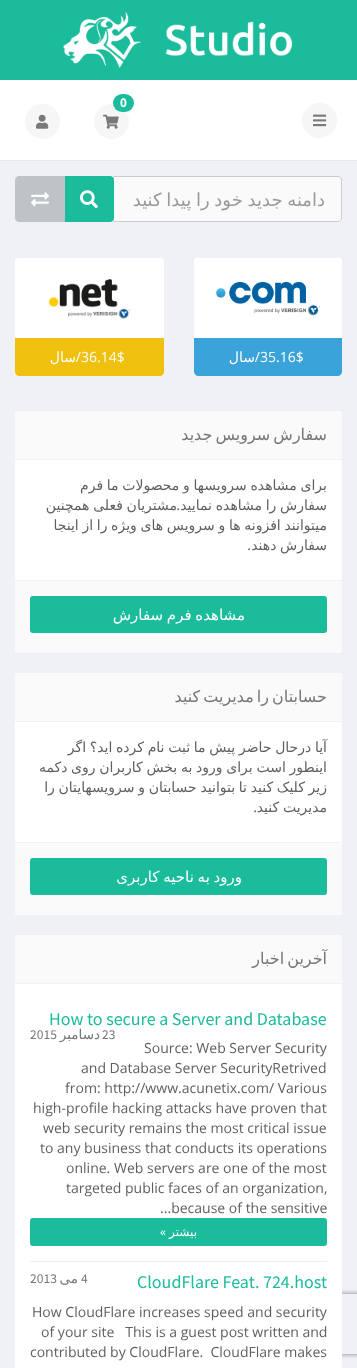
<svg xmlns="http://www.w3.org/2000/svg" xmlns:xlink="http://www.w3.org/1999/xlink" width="357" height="1368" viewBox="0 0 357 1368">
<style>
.cls-1{font:bold 12px Open Sans;fill:#ffffff}
.cls-2{font:18px DejaVu Sans;direction:rtl;fill:#999999}
.cls-3{font:14px DejaVu Sans;direction:rtl;fill:#ffffff}
.cls-4{font:14px Open Sans;direction:rtl;fill:#ffffff}
.cls-5{font:14px Open Sans;fill:#ffffff}
.cls-6{font:16px DejaVu Sans;direction:rtl;fill:#767676}
.cls-7{font:14px DejaVu Sans;direction:rtl;fill:#5d5f63}
.cls-8{font:14px Open Sans;direction:rtl;fill:#5d5f63}
.cls-9{font:15px DejaVu Sans;direction:rtl;fill:#ffffff}
.cls-10{font:18px Source Sans Pro;fill:#1abc9c}
.cls-11{font:13.5px Source Sans Pro;fill:#767676}
.cls-12{font:13.5px DejaVu Sans;direction:rtl;fill:#767676}
.cls-13{font:14px Open Sans;fill:#5d5f63}
.cls-14{font:12px Open Sans;direction:rtl;fill:#ffffff}
.cls-15{font:12px DejaVu Sans;direction:rtl;fill:#ffffff}
</style>
<defs>
<clipPath id="clip1"><path d="M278 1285H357V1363H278ZM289 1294H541C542 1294 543 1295 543 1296V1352C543 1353 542 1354 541 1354H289C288 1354 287 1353 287 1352V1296C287 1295 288 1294 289 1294Z" clip-rule="evenodd"/></clipPath>
<clipPath id="clip2"><rect x="130" y="187" width="195" height="24"/></clipPath>
</defs>
<rect width="100%" height="100%" fill="#f0f1f6"/>
<rect fill="#ffffff" x="0" y="80" width="357" height="80"/>
<rect fill="#1abc9c" x="0" y="0" width="357" height="80"/>
<image xlink:href="image0.png" x="63" y="12" width="230" height="56"/>
<circle fill="#f6f6f6" cx="111.5" cy="121.5" r="17.5"/>
<rect fill="#1abc9c" x="113" y="94" width="21" height="18" rx="9"/>
<image xlink:href="image1.png" x="103" y="114" width="16" height="15"/>
<circle fill="#f6f6f6" cx="42.5" cy="121.5" r="17.5"/>
<image xlink:href="image2.png" x="36" y="114" width="13" height="15"/>
<circle fill="#f6f6f6" cx="319.5" cy="120.5" r="17.5"/>
<image xlink:href="image3.png" x="313" y="114" width="14" height="13"/>
<rect fill="#e7e8ec" x="0" y="160" width="357" height="1"/>
<path fill="#fafafa" stroke="#cccccc" d="M113.5 176.5H338C340 176.5 341.5 178 341.5 180V218C341.5 220 340 221.5 338 221.5H113.5Z"/>
<path fill="#1abc9c" d="M64 176H110C112 176 114 178 114 180V218C114 220 112 222 110 222H64Z"/>
<path fill="#bdc3c7" d="M19 176H65V222H19C17 222 15 220 15 218V180C15 178 17 176 19 176Z"/>
<image xlink:href="image4.png" x="31" y="192" width="18" height="15"/>
<image xlink:href="image5.png" x="80" y="190" width="18" height="19"/>
<rect fill="#ffffff" x="15" y="258" width="149" height="118" rx="3"/>
<image xlink:href="image6.png" x="49" y="279" width="81" height="40"/>
<path fill="#efc00e" d="M15 338H164V372C164 374 162 376 160 376H19C17 376 15 374 15 372Z"/>
<rect fill="#ffffff" x="194" y="258" width="148" height="118" rx="3"/>
<image xlink:href="image7.png" x="216" y="282" width="104" height="34"/>
<path fill="#3aa4da" d="M194 338H342V372C342 374 340 376 338 376H198C196 376 194 374 194 372Z"/>
<g clip-path="url(#clip1)">
<rect fill="#808080" filter="blur(2.5px)" x="287" y="1294" width="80" height="60" rx="2"/>
</g>
<rect fill="#ffffff" x="15" y="411" width="327" height="242" rx="3"/>
<path fill="#fafafa" d="M18 411H339C340.5 411 342 412.5 342 414V460H15V414C15 412.5 16.5 411 18 411Z"/>
<rect fill="#eff2f7" x="15" y="459" width="327" height="1"/>
<path fill="#fafafa" d="M15 580H342V650C342 651.5 340.5 653 339 653H18C16.5 653 15 651.5 15 650Z"/>
<rect fill="#eff2f7" x="15" y="580" width="327" height="1"/>
<rect fill="#1abc9c" x="30" y="596" width="297" height="37" rx="3"/>
<rect fill="#ffffff" x="15" y="673" width="327" height="242" rx="3"/>
<path fill="#fafafa" d="M18 673H339C340.5 673 342 674.5 342 676V722H15V676C15 674.5 16.5 673 18 673Z"/>
<rect fill="#eff2f7" x="15" y="721" width="327" height="1"/>
<path fill="#fafafa" d="M15 842H342V912C342 913.5 340.5 915 339 915H18C16.5 915 15 913.5 15 912Z"/>
<rect fill="#eff2f7" x="15" y="842" width="327" height="1"/>
<rect fill="#1abc9c" x="30" y="858" width="297" height="37" rx="3"/>
<rect fill="#ffffff" x="15" y="935" width="327" height="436" rx="3"/>
<path fill="#fafafa" d="M18 935H339C340.5 935 342 936.5 342 938V984H15V938C15 936.5 16.5 935 18 935Z"/>
<rect fill="#eff2f7" x="15" y="983" width="327" height="1"/>
<rect fill="#1abc9c" x="30" y="1218" width="297" height="28" rx="3"/>
<rect fill="#eeeeee" x="30" y="1261" width="297" height="1"/>
<text class="cls-1" x="120" y="107">0</text>
<g clip-path="url(#clip2)">
<text class="cls-2" x="325" y="206" word-spacing="-1">دامنه جدید خود را پیدا کنید</text>
</g>
<text class="cls-3" x="76" y="362">سال</text>
<text class="cls-4" x="81" y="362">/</text>
<text class="cls-5" x="81" y="362">36.14$</text>
<text class="cls-3" x="255" y="362">سال</text>
<text class="cls-4" x="260" y="362">/</text>
<text class="cls-5" x="260" y="362">35.16$</text>
<text class="cls-6" x="327" y="440" word-spacing="-2">سفارش سرویس جدید</text>
<text class="cls-7" x="327" y="490" word-spacing="-0.75">برای مشاهده سرویسها و محصولات ما فرم</text>
<text class="cls-7" x="177" y="510" word-spacing="-0.75">مشتریان فعلی همچنین</text>
<text class="cls-8" x="180" y="510">.</text>
<text class="cls-7"><tspan x="327" y="510" word-spacing="-0.75">سفارش را مشاهده نمایید</tspan><tspan x="327" y="530" word-spacing="-0.75">میتوانند افزونه ها و سرویس های ویژه را از اینجا</tspan></text>
<text class="cls-8" x="251" y="550">.</text>
<text class="cls-7" x="327" y="550" word-spacing="-0.75">سفارش دهند</text>
<text class="cls-9" x="245" y="620" word-spacing="-1">مشاهده فرم سفارش</text>
<text class="cls-6" x="327" y="702" word-spacing="-2">حسابتان را مدیریت کنید</text>
<text class="cls-7"><tspan x="327" y="752" word-spacing="-0.75">آیا درحال حاضر پیش ما ثبت نام کرده اید؟ اگر</tspan><tspan x="327" y="772" word-spacing="-0.75">اینطور است برای ورود به بخش کاربران روی دکمه</tspan><tspan x="327" y="792" word-spacing="-0.75">زیر کلیک کنید تا بتوانید حسابتان و سرویسهایتان را</tspan></text>
<text class="cls-8" x="257" y="812">.</text>
<text class="cls-7" x="327" y="812" word-spacing="-0.75">مدیریت کنید</text>
<text class="cls-9" x="242" y="882" word-spacing="-1">ورود به ناحیه کاربری</text>
<text class="cls-6" x="327" y="964" word-spacing="-2">آخرین اخبار</text>
<text class="cls-10" x="49" y="1025">How to secure a Server and Database</text>
<text class="cls-11" x="30" y="1039">2015</text>
<text class="cls-12" x="100" y="1039">دسامبر</text>
<text class="cls-11" x="102" y="1039">23</text>
<text class="cls-13" x="144" y="1053">Source: Web Server Security</text>
<text class="cls-13" x="81" y="1073">and Database Server SecurityRetrived</text>
<text class="cls-13" x="65" y="1093">from: http://www.acunetix.com/ Various</text>
<text class="cls-13" x="33" y="1113">high-profile hacking attacks have proven that</text>
<text class="cls-13" x="43" y="1133">web security remains the most critical issue</text>
<text class="cls-13" x="40" y="1153">to any business that conducts its operations</text>
<text class="cls-13"><tspan x="66" y="1173">online. Web servers are one of the most</tspan><tspan x="66" y="1193">targeted public faces of an organization,</tspan></text>
<text class="cls-13" x="160" y="1213">...because of the sensitive</text>
<text class="cls-14" x="166" y="1236">»</text>
<text class="cls-15" x="197" y="1236">بیشتر</text>
<text class="cls-11" x="30" y="1283">2013</text>
<text class="cls-12" x="78" y="1283">می</text>
<text class="cls-11" x="81" y="1283">4</text>
<text class="cls-10" x="137" y="1288">CloudFlare Feat. 724.host</text>
<text class="cls-13" x="32" y="1317">How CloudFlare increases speed and security</text>
<text class="cls-13" xml:space="preserve" x="41" y="1337">of your site   This is a guest post written and</text>
<text class="cls-13" xml:space="preserve" x="30" y="1357">contributed by CloudFlare.  CloudFlare makes</text>
</svg>
